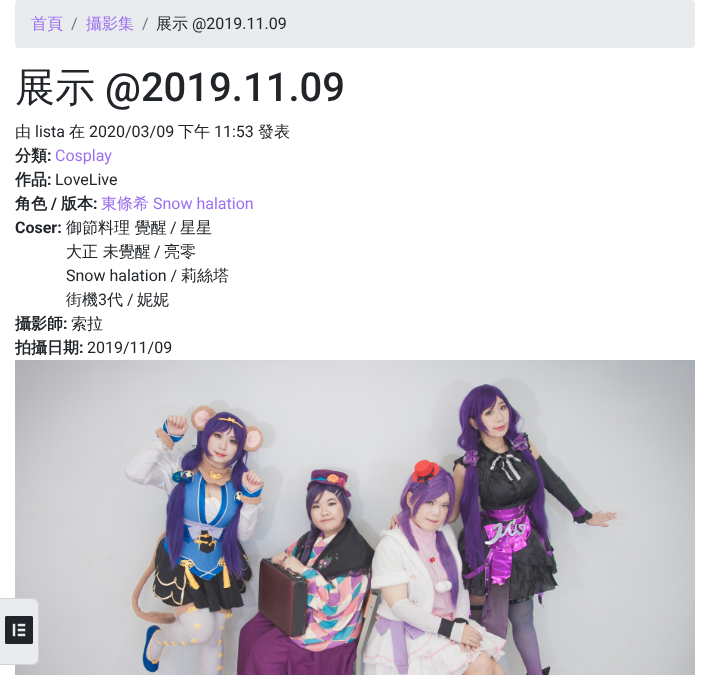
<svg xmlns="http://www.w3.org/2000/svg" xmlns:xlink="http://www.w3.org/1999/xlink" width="710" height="675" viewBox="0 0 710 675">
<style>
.cls-1{font:500 16px WenQuanYi Zen Hei;fill:#9b6eef}
.cls-2{font:16px Roboto;fill:#6c757d}
.cls-3{font:500 16px WenQuanYi Zen Hei;fill:#212529}
.cls-4{font:16px Roboto;fill:#212529}
.cls-5{font:500 40px WenQuanYi Zen Hei;fill:#212529}
.cls-6{font:500 40px Roboto;fill:#212529}
.cls-7{font:bold 16px WenQuanYi Zen Hei;fill:#212529}
.cls-8{font:bold 16px Roboto;fill:#212529}
.cls-9{font:16px Roboto;fill:#9b6eef}
</style>
<rect width="100%" height="100%" fill="#ffffff"/>
<rect fill="#e9ecef" x="15" y="0" width="680" height="48" rx="4"/>
<image xlink:href="image0.png" x="15" y="360" width="680" height="315"/>
<path fill="#e9ecef" d="M0 598H32C36 598 39 601 39 605V658C39 662 36 665 32 665H0Z"/>
<path fill="#ced4da" fill-rule="evenodd" d="M0 598H32C36 598 39 601 39 605V658C39 662 36 665 32 665H0ZM0 599H32C35 599 38 602 38 605V658C38 661 35 664 32 664H0Z"/>
<image xlink:href="image1.png" x="5" y="616" width="28" height="28"/>
<text class="cls-1" x="31" y="29">首頁</text>
<text class="cls-2" x="71" y="29">/</text>
<text class="cls-1" x="86" y="29">攝影集</text>
<text class="cls-2" x="142" y="29">/</text>
<text class="cls-3" x="156" y="29">展示</text>
<text class="cls-4" x="192" y="29">@2019.11.09</text>
<text class="cls-5" x="15" y="101">展示</text>
<text class="cls-6" x="105" y="101">@2019.11.09</text>
<text class="cls-3" x="15" y="137">由</text>
<text class="cls-4" x="35" y="137">lista</text>
<text class="cls-3" x="69" y="137">在</text>
<text class="cls-4" x="89" y="137">2020/03/09</text>
<text class="cls-3" x="178" y="137">下午</text>
<text class="cls-4" x="214" y="137">11:53</text>
<text class="cls-3" x="258" y="137">發表</text>
<text class="cls-7" x="15" y="161">分類</text>
<text class="cls-8" x="47" y="161">:</text>
<text class="cls-9" x="55" y="161">Cosplay</text>
<text class="cls-7" x="15" y="185">作品</text>
<text class="cls-8" x="47" y="185">:</text>
<text class="cls-4" x="55" y="185">LoveLive</text>
<text class="cls-7" x="15" y="209">角色</text>
<text class="cls-8" x="51" y="209">/</text>
<text class="cls-7" x="61" y="209">版本</text>
<text class="cls-8" x="93" y="209">:</text>
<text class="cls-1" x="101" y="209">東條希</text>
<text class="cls-9" x="153" y="209">Snow halation</text>
<text class="cls-8" x="15" y="233">Coser:</text>
<text class="cls-3" x="66" y="233">御節料理 覺醒</text>
<text class="cls-4" x="170" y="233">/</text>
<text class="cls-3" x="180" y="233">星星</text>
<text class="cls-3" x="66" y="257">大正 未覺醒</text>
<text class="cls-4" x="154" y="257">/</text>
<text class="cls-3" x="164" y="257">亮零</text>
<text class="cls-4" x="66" y="281">Snow halation /</text>
<text class="cls-3" x="181" y="281">莉絲塔</text>
<text class="cls-3" x="66" y="305">街機</text>
<text class="cls-4" x="98" y="305">3</text>
<text class="cls-3" x="107" y="305">代</text>
<text class="cls-4" x="127" y="305">/</text>
<text class="cls-3" x="137" y="305">妮妮</text>
<text class="cls-7" x="15" y="329">攝影師</text>
<text class="cls-8" x="63" y="329">:</text>
<text class="cls-3" x="71" y="329">索拉</text>
<text class="cls-7" x="15" y="353">拍攝日期</text>
<text class="cls-8" x="79" y="353">:</text>
<text class="cls-4" x="87" y="353">2019/11/09</text>
</svg>
